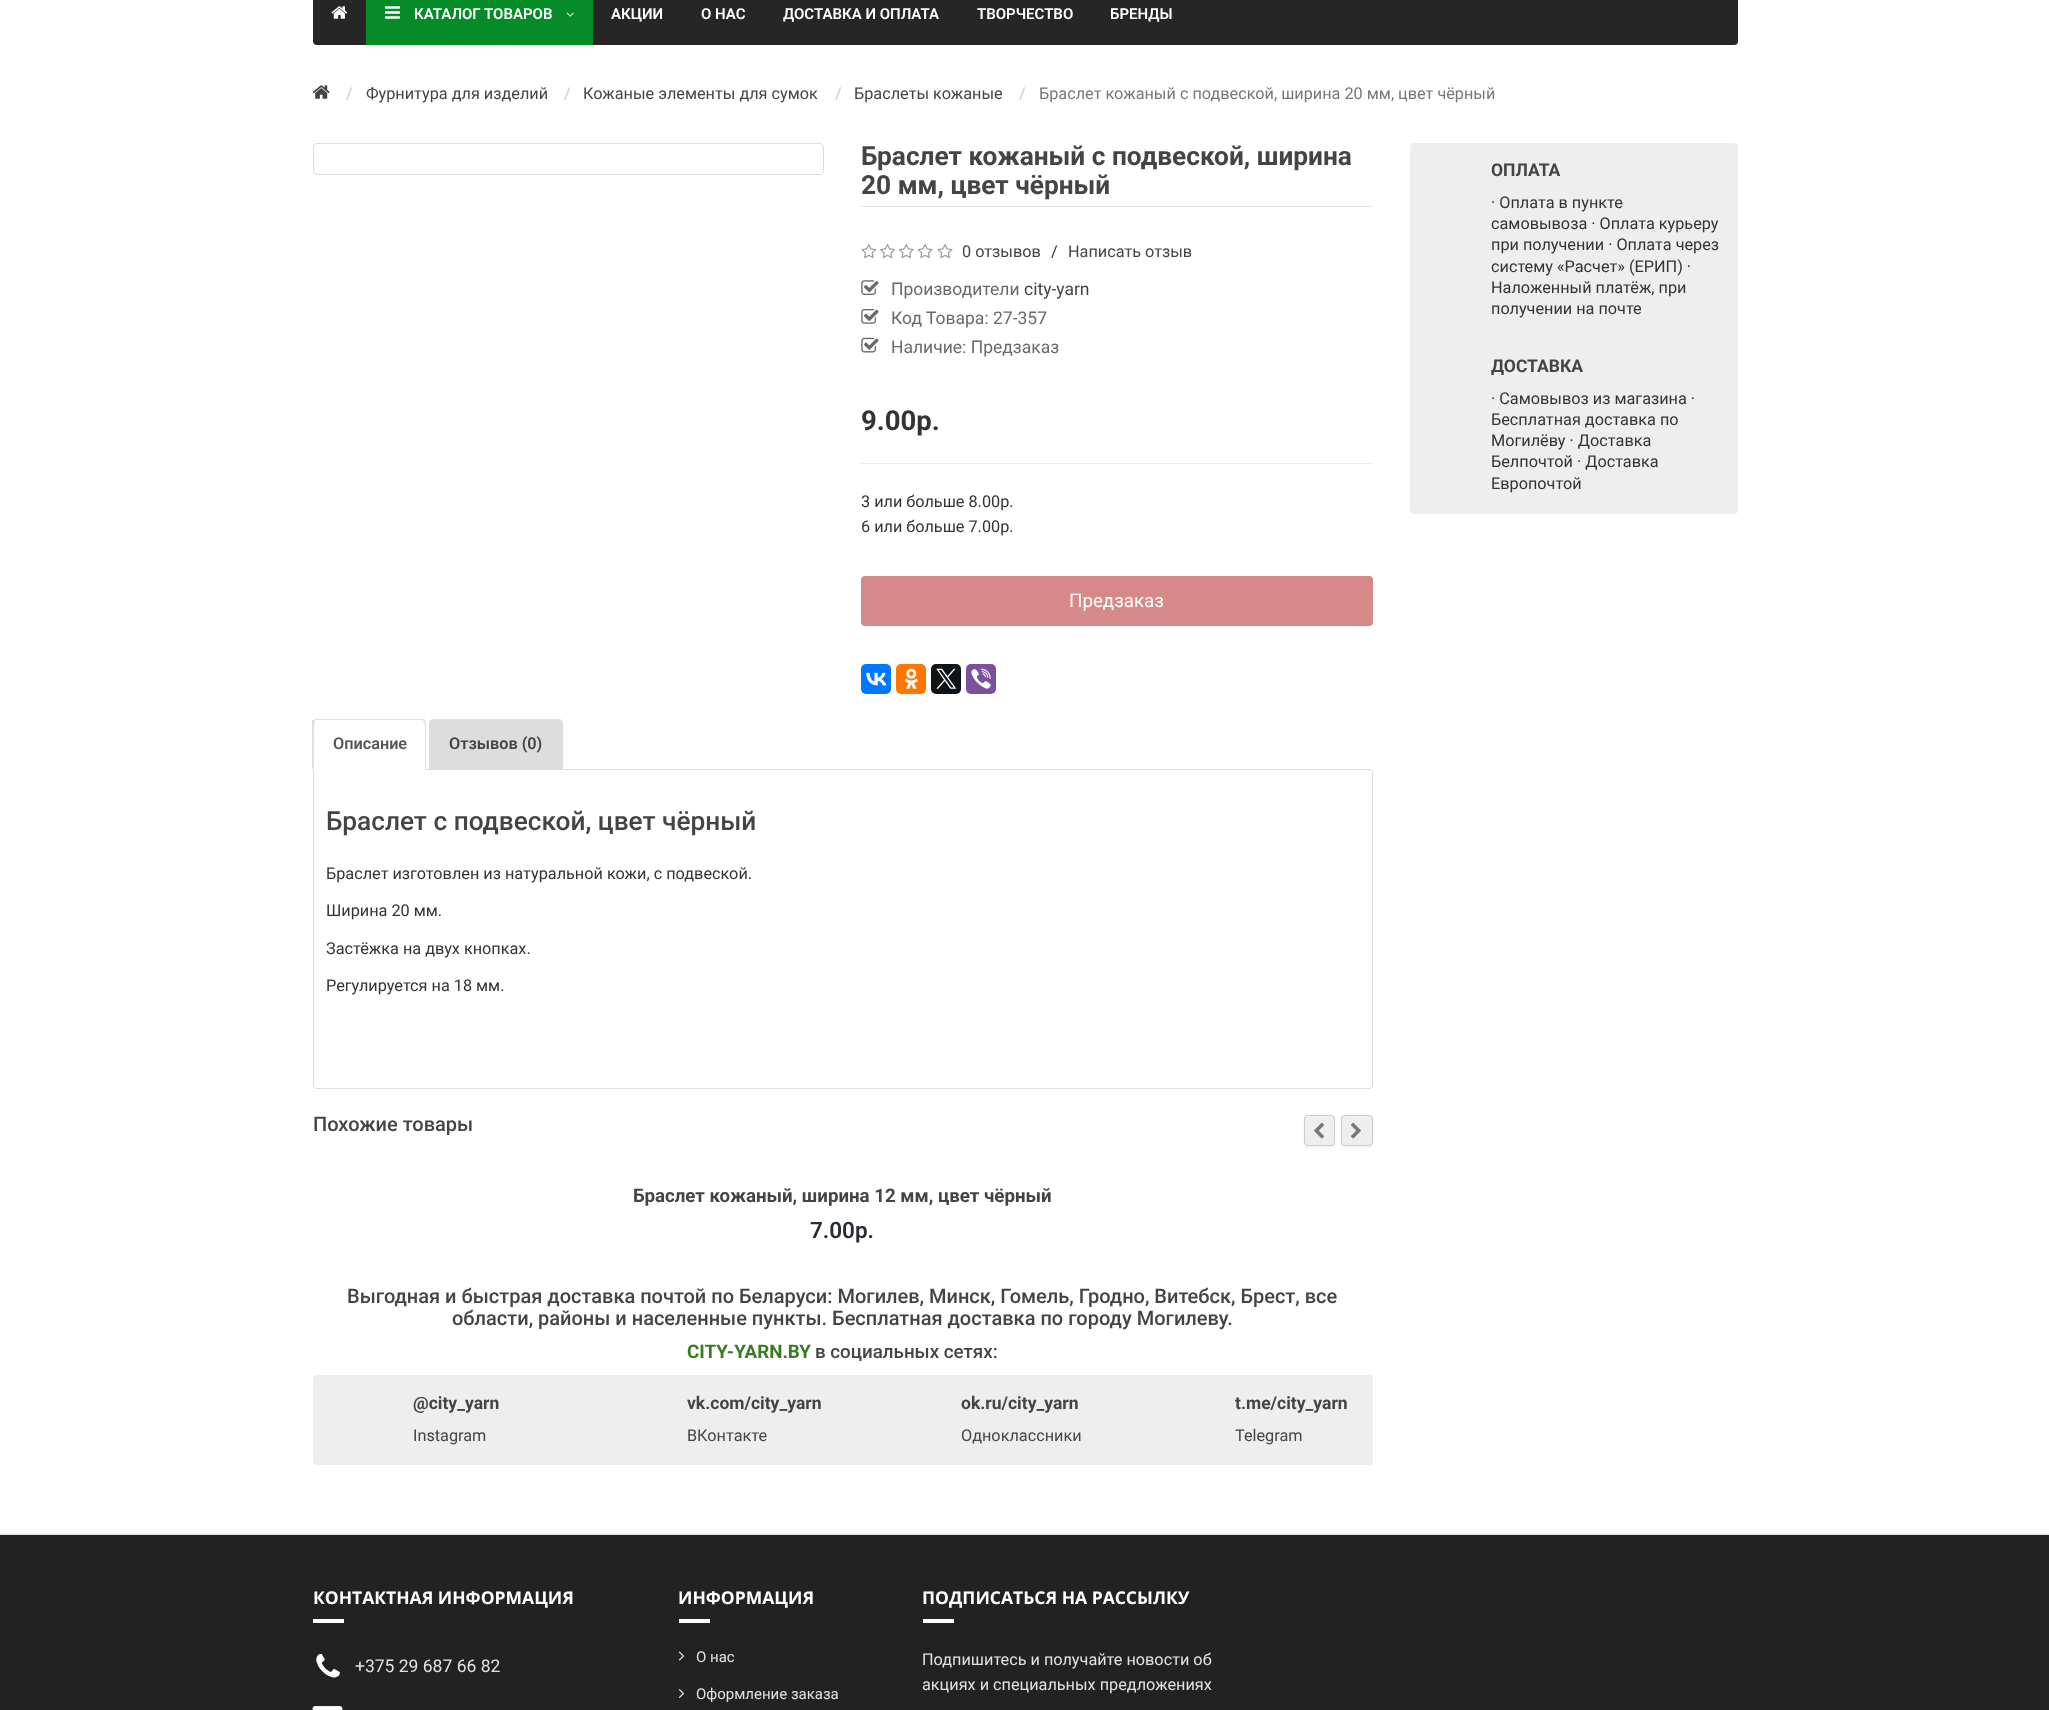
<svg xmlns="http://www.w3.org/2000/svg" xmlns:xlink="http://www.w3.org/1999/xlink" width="2049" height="1710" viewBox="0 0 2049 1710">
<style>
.cls-1{font:600 15px Roboto;fill:#ffffff}
.cls-2{font:16.25px Roboto;fill:#cccccc}
.cls-3{font:16.25px Roboto;fill:#444444}
.cls-4{font:16.25px Roboto;fill:#777777}
.cls-5{font:bold 26.25px Roboto;fill:#444444}
.cls-6{font:16.25px Roboto;fill:#333333}
.cls-7{font:17.5px Roboto;fill:#69686c}
.cls-8{font:17.5px Roboto;fill:#444444}
.cls-9{font:bold 27.5px Roboto;fill:#333333}
.cls-10{font:18.75px Roboto;fill:#ffffff}
.cls-11{font:600 16.25px Roboto;fill:#555555}
.cls-12{font:600 16.25px Roboto;fill:#444444}
.cls-13{font:500 26.25px Roboto;fill:#444444}
.cls-14{font:500 20px Roboto;fill:#444444}
.cls-15{font:bold 18.7px Roboto;fill:#444444}
.cls-16{font:600 22.5px Roboto;fill:#282e33}
.cls-17{font:bold 18.75px Roboto;fill:#397b21}
.cls-18{font:500 18.75px Roboto;fill:#444444}
.cls-19{font:bold 17.5px Roboto;fill:#444444}
.cls-20{font:bold 17.5px Open Sans;fill:#ffffff}
.cls-21{font:17.5px Roboto;fill:#e2e2e2}
.cls-22{font:15px Roboto;fill:#e2e2e2}
.cls-23{font:16.25px Roboto;fill:#e2e2e2}
</style>
<rect width="100%" height="100%" fill="#ffffff"/>
<rect fill="#262626" x="313" y="-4" width="1425" height="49" rx="4"/>
<image xlink:href="image0.png" x="331" y="6" width="17" height="13"/>
<rect fill="#058b28" x="366" y="0" width="227" height="45"/>
<image xlink:href="image1.png" x="385" y="6" width="15" height="13"/>
<image xlink:href="image2.png" x="566" y="12" width="8" height="5"/>
<image xlink:href="image3.png" x="312" y="85" width="18" height="14"/>
<rect fill="none" stroke="#dddddd" x="313.5" y="143.5" width="510" height="31" rx="3.5"/>
<rect fill="#e5e5e5" x="861" y="206" width="512" height="1"/>
<image xlink:href="image4.png" x="861" y="244" width="16" height="15"/>
<image xlink:href="image5.png" x="880" y="243" width="15" height="16"/>
<image xlink:href="image6.png" x="898" y="243" width="16" height="16"/>
<image xlink:href="image7.png" x="917" y="244" width="16" height="15"/>
<image xlink:href="image7.png" x="937" y="244" width="16" height="15"/>
<image xlink:href="image8.png" x="861" y="280" width="18" height="15"/>
<image xlink:href="image9.png" x="861" y="309" width="18" height="15"/>
<image xlink:href="image10.png" x="861" y="337" width="18" height="16"/>
<rect fill="#eeeeee" x="861" y="463" width="512" height="1"/>
<rect fill="#e68f8d" x="861" y="576" width="512" height="50" rx="4"/>
<path fill="#595959" fill-opacity="0.1" d="M865 576C863 576 861 578 861 580V622C861 624 863 626 865 626H1369C1371 626 1373 624 1373 622V580C1373 578 1371 576 1369 576Z"/>
<rect fill="#0077ff" x="861" y="664" width="30" height="30" rx="5"/>
<image xlink:href="image11.png" x="866" y="672" width="21" height="14"/>
<rect fill="#ff7700" x="896" y="664" width="30" height="30" rx="5"/>
<image xlink:href="image12.png" x="904" y="668" width="14" height="21"/>
<rect fill="#0f1419" x="931" y="664" width="30" height="30" rx="5"/>
<image xlink:href="image13.png" x="936" y="668" width="21" height="21"/>
<rect fill="#7b519d" x="966" y="664" width="30" height="30" rx="5"/>
<image xlink:href="image14.png" x="971" y="668" width="20" height="21"/>
<path fill="none" stroke="#dddddd" d="M313.5 769.5H1369C1371 769.5 1372.5 771 1372.5 773V1085C1372.5 1087 1371 1088.5 1369 1088.5H317C315 1088.5 313.5 1087 313.5 1085Z"/>
<path fill="#ffffff" d="M317 719H422C424 719 426 721 426 723V770H313V723C313 721 315 719 317 719Z"/>
<path fill="#dddddd" d="M316 719L313 720L315 721V720H404H422L424 721L425 720L422 719Z"/>
<path fill="#dddddd" d="M426 770C426 764 427 721 425 720L424 721C426 722 425 763 425 769Z"/>
<path fill="#dddddd" d="M312 770L314 768C314 763 313 722 315 721L313 720H312Z"/>
<path fill="#dddddd" d="M433 719H559C561 719 563 721 563 723V770H429V723C429 721 431 719 433 719Z"/>
<rect fill="#000000" fill-opacity="0.05" filter="blur(1px)" x="1304" y="1116" width="31" height="32" rx="4"/>
<rect fill="#eeeeee" x="1304" y="1115" width="31" height="31" rx="4"/>
<path fill="#f1f1f1" d="M1308 1118H1331C1333 1118 1334 1119 1334 1120C1334 1115 1332 1116 1327.5 1116H1311.5C1307 1116 1305 1115 1305 1120C1305 1119 1306 1118 1308 1118Z"/>
<rect fill="none" stroke="#cccccc" x="1304.5" y="1115.5" width="30" height="30" rx="3.5"/>
<image xlink:href="image15.png" x="1314" y="1122" width="11" height="17"/>
<rect fill="#000000" fill-opacity="0.05" filter="blur(1px)" x="1341" y="1116" width="32" height="32" rx="4"/>
<rect fill="#eeeeee" x="1341" y="1115" width="32" height="31" rx="4"/>
<path fill="#f1f1f1" d="M1345 1118H1369C1370 1118 1371 1119 1371 1120C1371 1115.5 1369 1116 1364.5 1116H1349.5C1347 1116 1343 1115.5 1343 1118.5Z"/>
<rect fill="none" stroke="#cccccc" x="1341.5" y="1115.5" width="31" height="30" rx="3.5"/>
<image xlink:href="image16.png" x="1350" y="1122" width="11" height="17"/>
<rect fill="#eeeeee" x="313" y="1375" width="1060" height="90" rx="4"/>
<rect fill="#eeeeee" x="1410" y="143" width="328" height="371" rx="4"/>
<rect fill="#232222" x="0" y="1535" width="2049" height="175"/>
<rect fill="#dddddd" x="0" y="1534" width="2049" height="1"/>
<rect fill="#ffffff" x="313" y="1619" width="31" height="4"/>
<image xlink:href="image17.png" x="316" y="1653" width="24" height="25"/>
<image xlink:href="image18.png" x="312" y="1706" width="31" height="4"/>
<rect fill="#ffffff" x="679" y="1619" width="31" height="4"/>
<image xlink:href="image19.png" x="678" y="1651" width="7" height="10"/>
<image xlink:href="image20.png" x="678" y="1689" width="7" height="9"/>
<rect fill="#ffffff" x="923" y="1619" width="31" height="4"/>
<text class="cls-1" x="414" y="19">КАТАЛОГ ТОВАРОВ</text>
<text class="cls-1" x="611" y="19">АКЦИИ</text>
<text class="cls-1" x="701" y="19">О НАС</text>
<text class="cls-1" x="783" y="19">ДОСТАВКА И ОПЛАТА</text>
<text class="cls-1" x="977" y="19">ТВОРЧЕСТВО</text>
<text class="cls-1" x="1110" y="19">БРЕНДЫ</text>
<text class="cls-2" x="346" y="99">/</text>
<text class="cls-3" x="366" y="99">Фурнитура для изделий</text>
<text class="cls-2" x="564" y="99">/</text>
<text class="cls-3" x="583" y="99">Кожаные элементы для сумок</text>
<text class="cls-2" x="835" y="99">/</text>
<text class="cls-3" x="854" y="99">Браслеты кожаные</text>
<text class="cls-2" x="1019" y="99">/</text>
<text class="cls-4" x="1039" y="99">Браслет кожаный с подвеской, ширина 20 мм, цвет чёрный</text>
<text class="cls-5"><tspan x="861" y="165">Браслет кожаный с подвеской, ширина</tspan><tspan x="861" y="194">20 мм, цвет чёрный</tspan></text>
<text class="cls-3" x="962" y="257">0 отзывов</text>
<text class="cls-6" x="1051" y="257">/</text>
<text class="cls-3" x="1068" y="257">Написать отзыв</text>
<text class="cls-7" x="891" y="295">Производители</text>
<text class="cls-8" x="1024" y="295">city-yarn</text>
<text class="cls-7"><tspan x="891" y="324">Код Товара: 27-357</tspan><tspan x="891" y="353">Наличие: Предзаказ</tspan></text>
<text class="cls-9" x="861" y="430">9.00р.</text>
<text class="cls-6"><tspan x="861" y="507">3 или больше 8.00р.</tspan><tspan x="861" y="532">6 или больше 7.00р.</tspan></text>
<text class="cls-10" x="1069" y="607">Предзаказ</text>
<text class="cls-11" x="333" y="749">Описание</text>
<text class="cls-12" x="449" y="749">Отзывов (0)</text>
<text class="cls-13" x="326" y="830">Браслет с подвеской, цвет чёрный</text>
<text class="cls-6" x="326" y="879">Браслет изготовлен из натуральной кожи, с подвеской.</text>
<text class="cls-6" x="326" y="916">Ширина 20 мм.</text>
<text class="cls-6" x="326" y="954">Застёжка на двух кнопках.</text>
<text class="cls-6" x="326" y="991">Регулируется на 18 мм.</text>
<text class="cls-14" x="313" y="1131">Похожие товары</text>
<text class="cls-15" x="633" y="1202">Браслет кожаный, ширина 12 мм, цвет чёрный</text>
<text class="cls-16" x="810" y="1238">7.00р.</text>
<text class="cls-14" x="347" y="1303">Выгодная и быстрая доставка почтой по Беларуси: Могилев, Минск, Гомель, Гродно, Витебск, Брест, все</text>
<text class="cls-14" x="452" y="1325">области, районы и населенные пункты. Бесплатная доставка по городу Могилеву.</text>
<text class="cls-17" x="687" y="1358">CITY-YARN.BY</text>
<text class="cls-18" x="815" y="1358">в социальных сетях:</text>
<text class="cls-19" x="413" y="1409">@city_yarn</text>
<text class="cls-3" x="413" y="1441">Instagram</text>
<text class="cls-19" x="687" y="1409">vk.com/city_yarn</text>
<text class="cls-3" x="687" y="1441">ВКонтакте</text>
<text class="cls-19" x="961" y="1409">ok.ru/city_yarn</text>
<text class="cls-3" x="961" y="1441">Одноклассники</text>
<text class="cls-19" x="1235" y="1409">t.me/city_yarn</text>
<text class="cls-3" x="1235" y="1441">Telegram</text>
<text class="cls-19" x="1491" y="176">ОПЛАТА</text>
<text class="cls-6"><tspan x="1491" y="208">· Оплата в пункте</tspan><tspan x="1491" y="229">самовывоза · Оплата курьеру</tspan><tspan x="1491" y="250">при получении · Оплата через</tspan><tspan x="1491" y="272">систему «Расчет» (ЕРИП) ·</tspan><tspan x="1491" y="293">Наложенный платёж, при</tspan><tspan x="1491" y="314">получении на почте</tspan></text>
<text class="cls-19" x="1491" y="372">ДОСТАВКА</text>
<text class="cls-6"><tspan x="1491" y="404">· Самовывоз из магазина ·</tspan><tspan x="1491" y="425">Бесплатная доставка по</tspan><tspan x="1491" y="446">Могилёву · Доставка</tspan><tspan x="1491" y="467">Белпочтой · Доставка</tspan><tspan x="1491" y="489">Европочтой</tspan></text>
<text class="cls-20" x="313" y="1604">КОНТАКТНАЯ ИНФОРМАЦИЯ</text>
<text class="cls-21" x="355" y="1672">+375 29 687 66 82</text>
<text class="cls-20" x="678" y="1604">ИНФОРМАЦИЯ</text>
<text class="cls-22" x="696" y="1662">О нас</text>
<text class="cls-22" x="696" y="1699">Оформление заказа</text>
<text class="cls-20" x="922" y="1604">ПОДПИСАТЬСЯ НА РАССЫЛКУ</text>
<text class="cls-23"><tspan x="922" y="1665">Подпишитесь и получайте новости об</tspan><tspan x="922" y="1690">акциях и специальных предложениях</tspan></text>
</svg>
